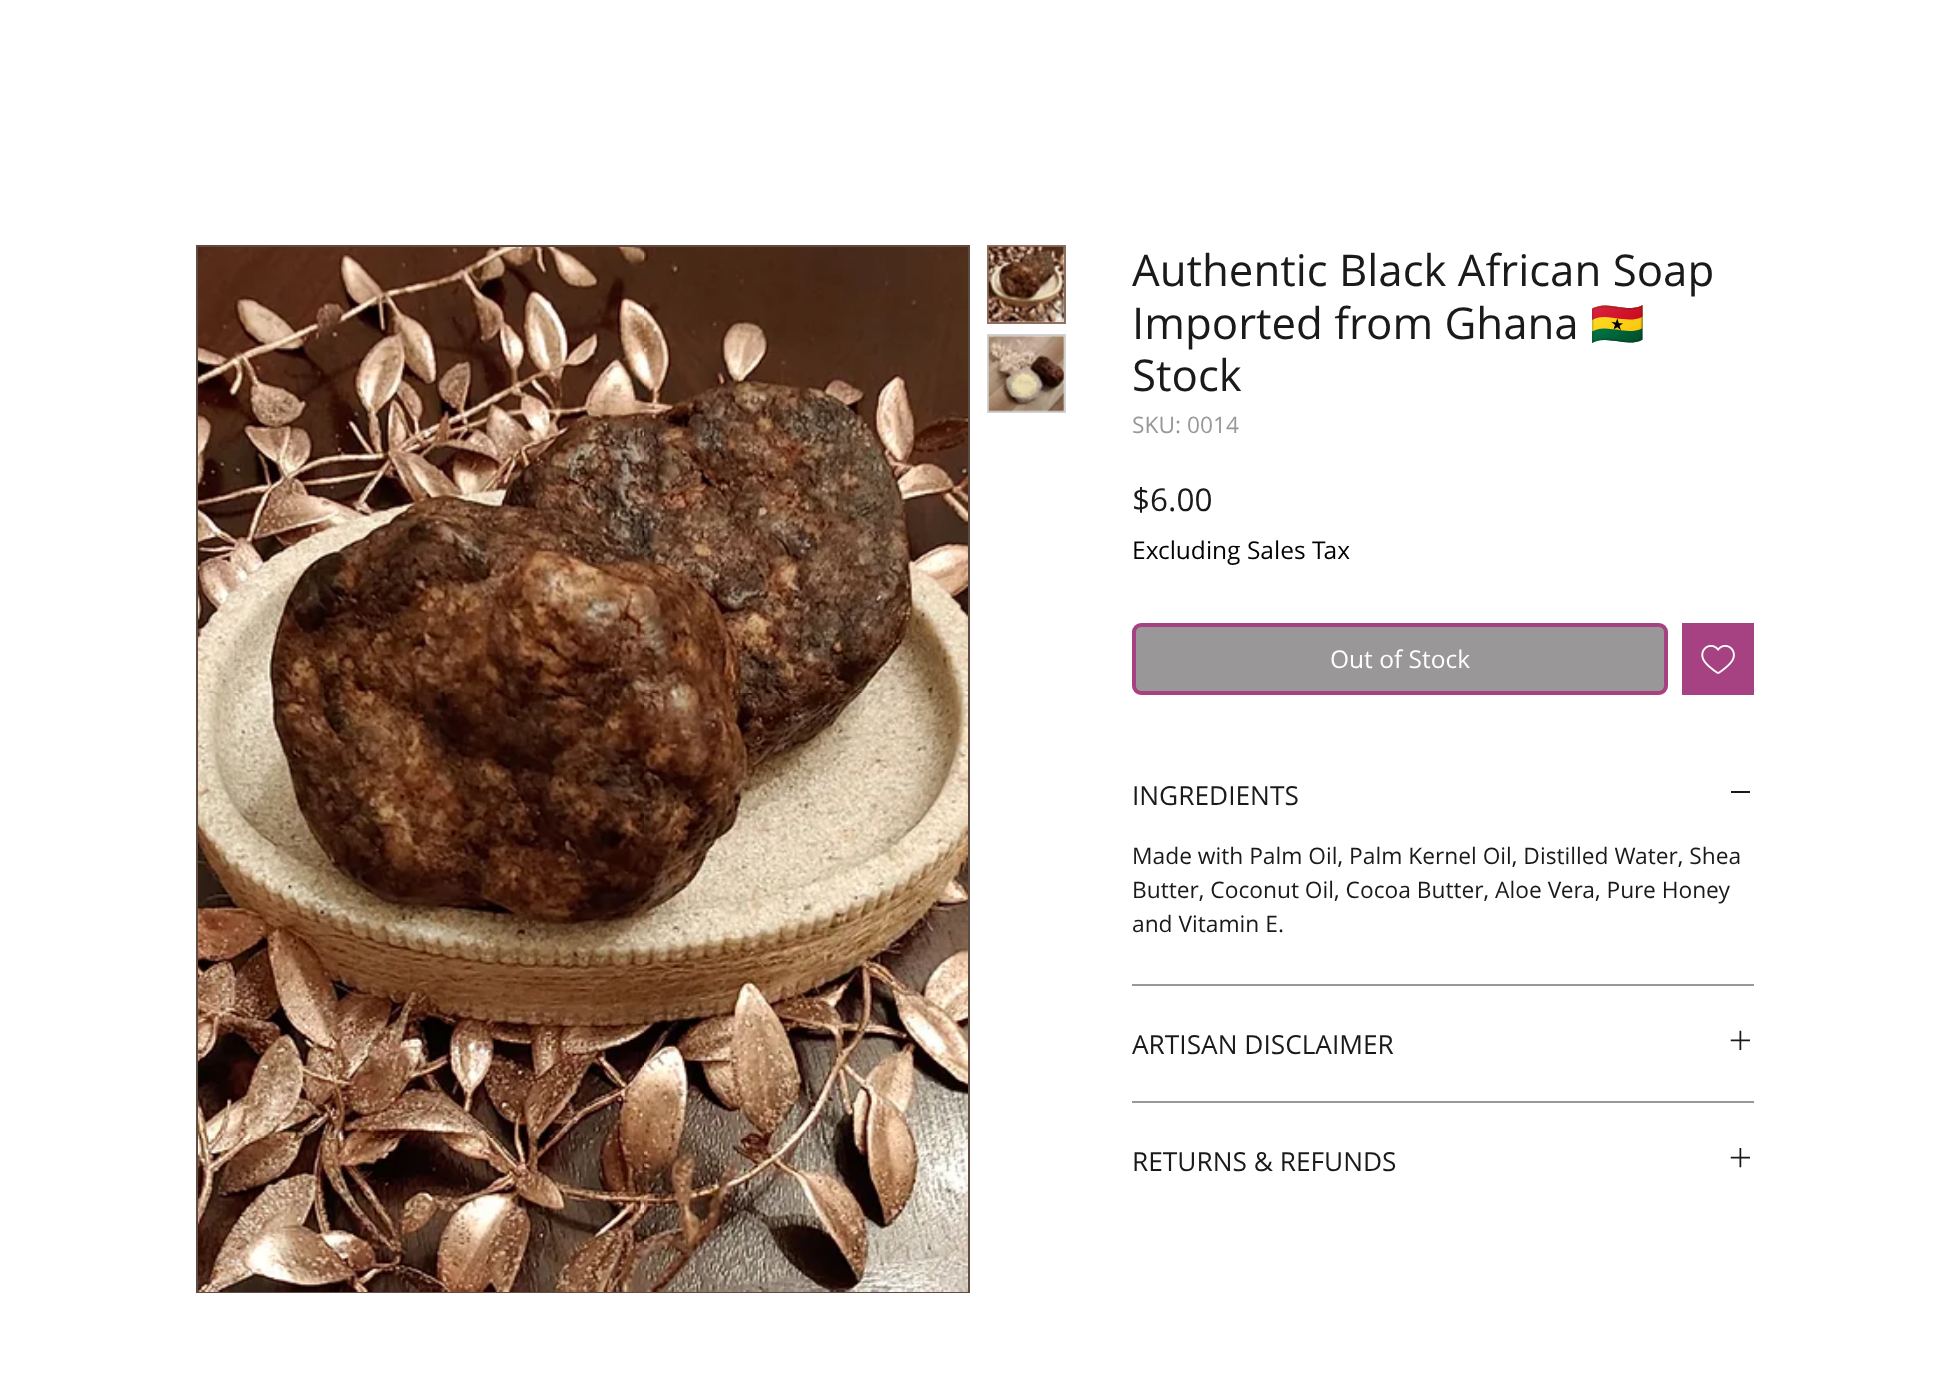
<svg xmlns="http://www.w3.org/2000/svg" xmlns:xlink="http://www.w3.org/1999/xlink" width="1948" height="1400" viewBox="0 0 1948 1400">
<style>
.cls-1{font:43.75px Open Sans;fill:#1a1a1a}
.cls-2{font:43.75px Noto Color Emoji;fill:#1a1a1a}
.cls-3{font:22.75px Open Sans;fill:#999797}
.cls-4{font:31.5px Open Sans;fill:#1a1a1a}
.cls-5{font:24.5px Open Sans;fill:#000000}
.cls-6{font:24.5px Open Sans;fill:#ffffff}
.cls-7{font:26.25px Open Sans;fill:#1a1a1a}
.cls-8{font:22.75px Open Sans;fill:#1a1a1a}
</style>
<rect width="100%" height="100%" fill="#ffffff"/>
<rect fill="none" stroke="#5f4b3f" stroke-width="2" x="197" y="246" width="772" height="1046"/>
<image xlink:href="image0.png" x="198" y="247" width="770" height="1045"/>
<rect fill="none" stroke="#8f705e" stroke-width="2" x="988" y="246" width="77" height="77"/>
<image xlink:href="image1.png" x="988" y="246" width="77" height="77"/>
<rect fill="none" stroke="#d4d3d3" stroke-width="2" x="988" y="335" width="77" height="77"/>
<image xlink:href="image2.png" x="988" y="335" width="77" height="77"/>
<rect fill="#999797" stroke="#a64182" stroke-width="4" x="1134" y="625" width="532" height="68" rx="7"/>
<rect fill="#a64182" x="1682" y="623" width="72" height="72"/>
<image xlink:href="image3.png" x="1701" y="645" width="34" height="29"/>
<rect fill="#999797" x="1132" y="984" width="622" height="2"/>
<rect fill="#1a1a1a" x="1731" y="791" width="19" height="2"/>
<rect fill="#999797" x="1132" y="1101" width="622" height="2"/>
<image xlink:href="image4.png" x="1730" y="1030" width="20" height="20"/>
<image xlink:href="image5.png" x="1730" y="1148" width="20" height="20"/>
<text class="cls-1"><tspan x="1132" y="286">Authentic Black African Soap</tspan><tspan x="1132" y="339">Imported from Ghana</tspan></text>
<text class="cls-2" x="1590" y="339">🇬🇭</text>
<text class="cls-1" x="1132" y="391">Stock</text>
<text class="cls-3" x="1132" y="433">SKU: 0014</text>
<text class="cls-4" x="1132" y="511">$6.00</text>
<text class="cls-5" x="1132" y="559">Excluding Sales Tax</text>
<text class="cls-6" x="1330" y="668">Out of Stock</text>
<text class="cls-7" x="1132" y="805">INGREDIENTS</text>
<text class="cls-8"><tspan x="1132" y="864">Made with Palm Oil, Palm Kernel Oil, Distilled Water, Shea</tspan><tspan x="1132" y="898">Butter, Coconut Oil, Cocoa Butter, Aloe Vera, Pure Honey</tspan><tspan x="1132" y="932">and Vitamin E.</tspan></text>
<text class="cls-7" x="1132" y="1054">ARTISAN DISCLAIMER</text>
<text class="cls-7" x="1132" y="1171">RETURNS &amp; REFUNDS</text>
</svg>
